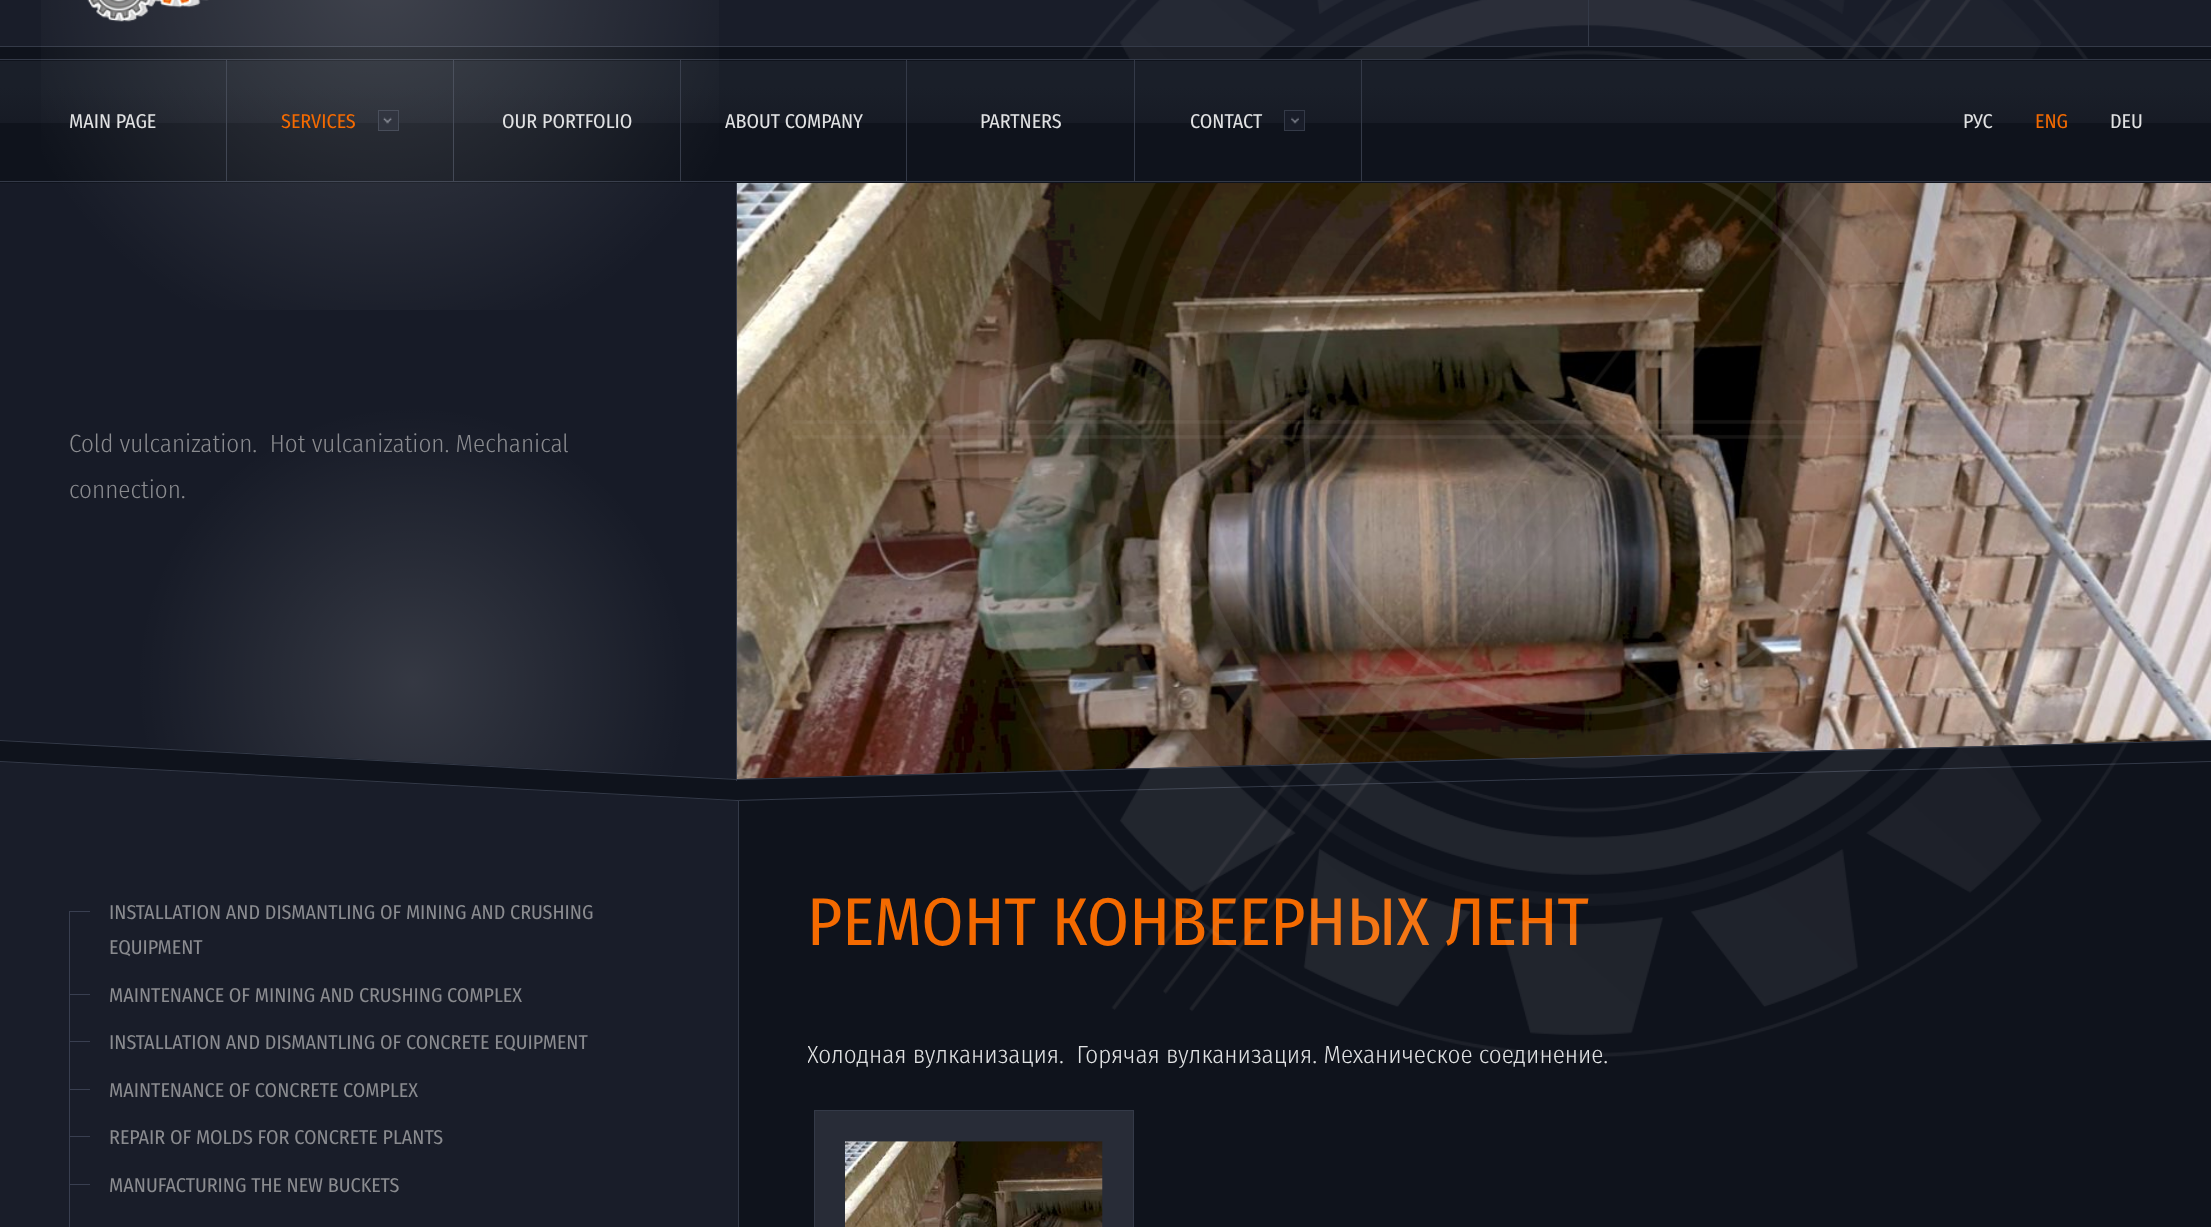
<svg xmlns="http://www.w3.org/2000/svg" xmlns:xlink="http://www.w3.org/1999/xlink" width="2211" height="1227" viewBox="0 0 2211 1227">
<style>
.cls-1{font:300 25px Fira Sans Condensed;fill:#8a8b8f}
.cls-2{font:20px Fira Sans Condensed;fill:#8a8b8f}
.cls-3{font:67.5px Fira Sans Condensed;fill:#f46a00}
.cls-4{font:300 25px Fira Sans Condensed;fill:#e1e2e3}
.cls-5{font:20px Fira Sans Condensed;fill:#e1e2e3}
.cls-6{font:20px Fira Sans Condensed;fill:#f46a00}
</style>
<defs>
<radialGradient id="g1" gradientUnits="userSpaceOnUse" cx="0" cy="0" r="1" gradientTransform="matrix(694 0 0 693 413 682)"><stop offset="0" stop-color="#ffffff" stop-opacity="0.13"/><stop offset="0.4" stop-color="#ffffff" stop-opacity="0"/></radialGradient>
<clipPath id="clip1"><rect x="808" y="1031" width="1335" height="47"/></clipPath>
<linearGradient id="g2" gradientUnits="userSpaceOnUse" x1="1106" y1="61" x2="1106" y2="123"><stop offset="0" stop-color="#1a1f29"/><stop offset="0.42" stop-color="#1a1f29"/><stop offset="1" stop-color="#171b25"/></linearGradient>
<radialGradient id="g3" gradientUnits="userSpaceOnUse" cx="380" cy="-30" r="649"><stop offset="0" stop-color="#ffffff" stop-opacity="0.17"/><stop offset="0.6" stop-color="#ffffff" stop-opacity="0"/></radialGradient>
</defs>
<rect width="100%" height="100%" fill="#0f131c"/>
<rect fill="#191d29" x="0" y="0" width="2211" height="46"/>
<image xlink:href="image0.png" x="87" y="0" width="122" height="22"/>
<rect fill="#191d29" x="0" y="762" width="738" height="465"/>
<image xlink:href="image4.png" x="204" y="183" width="2007" height="596"/>
<path fill="#171b27" d="M0 103L737 142V782L0 744Z"/>
<path fill="url(#g1)" d="M0 103L737 142V782L0 744Z"/>
<path fill="#0f131c" d="M0 740L737 779V801L0 762Z"/>
<path fill="#343a48" d="M0 740L737 779V780L0 741Z"/>
<path fill="#343a48" d="M0 761L737 800V801L0 762Z"/>
<rect fill="#343a48" x="736" y="183" width="1" height="598"/>
<rect fill="#343a48" x="738" y="800" width="1" height="427"/>
<path fill="#0f131c" d="M737 779L2211 740V762L737 801Z"/>
<path fill="#343a48" d="M737 779L2211 740V741L737 780Z"/>
<path fill="#343a48" d="M737 800L2211 761V762L737 801Z"/>
<rect fill="#393f50" x="69" y="911" width="1" height="316"/>
<rect fill="#393f50" x="70" y="911" width="20" height="1"/>
<rect fill="#393f50" x="70" y="994" width="20" height="1"/>
<rect fill="#393f50" x="70" y="1041" width="20" height="1"/>
<rect fill="#393f50" x="70" y="1089" width="20" height="1"/>
<rect fill="#393f50" x="70" y="1136" width="20" height="1"/>
<rect fill="#393f50" x="70" y="1184" width="20" height="1"/>
<rect fill="#282c37" stroke="#343a48" x="814.5" y="1110.5" width="319" height="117"/>
<image xlink:href="image5.png" x="845" y="1141" width="258" height="86"/>
<text class="cls-1" xml:space="preserve"><tspan x="69" y="452">Cold vulcanization.  Hot vulcanization. Mechanical</tspan><tspan x="69" y="498">connection.</tspan></text>
<text class="cls-2"><tspan x="109" y="919">INSTALLATION AND DISMANTLING OF MINING AND CRUSHING</tspan><tspan x="109" y="954">EQUIPMENT</tspan></text>
<text class="cls-2" x="109" y="1002">MAINTENANCE OF MINING AND CRUSHING COMPLEX</text>
<text class="cls-2" x="109" y="1049">INSTALLATION AND DISMANTLING OF CONCRETE EQUIPMENT</text>
<text class="cls-2" x="109" y="1097">MAINTENANCE OF CONCRETE COMPLEX</text>
<text class="cls-2" x="109" y="1144">REPAIR OF MOLDS FOR CONCRETE PLANTS</text>
<text class="cls-2" x="109" y="1192">MANUFACTURING THE NEW BUCKETS</text>
<text class="cls-3" x="807" y="945">РЕМОНТ КОНВЕЕРНЫХ ЛЕНТ</text>
<g clip-path="url(#clip1)">
<text class="cls-4" xml:space="preserve" x="807" y="1063">Холодная вулканизация.  Горячая вулканизация. Механическое соединение.</text>
</g>
<image xlink:href="image1.png" x="792" y="0" width="1418" height="1057"/>
<rect fill="#0f131c" x="0" y="60" width="2160" height="123"/>
<rect fill="url(#g2)" x="0" y="61" width="2211" height="62"/>
<rect fill="#343a48" x="680" y="60" width="1" height="121"/>
<rect fill="#191d29" x="379" y="111" width="19" height="19"/>
<image xlink:href="image2.png" x="383" y="117" width="9" height="7"/>
<rect fill="none" stroke="#343a48" x="378.5" y="110.5" width="20" height="20"/>
<rect fill="#343a48" x="453" y="60" width="1" height="121"/>
<rect fill="#343a48" x="226" y="60" width="1" height="121"/>
<rect fill="#343a48" x="0" y="181" width="2211" height="1"/>
<rect fill="#343a48" x="0" y="59" width="2211" height="1"/>
<rect fill="#343a48" x="0" y="46" width="2211" height="1"/>
<rect fill="url(#g3)" x="41" y="0" width="678" height="310"/>
<text class="cls-5" x="2110" y="128">DEU</text>
<text class="cls-6" x="2035" y="128">ENG</text>
<text class="cls-5" x="1963" y="128">РУС</text>
<rect fill="#191d29" x="1285" y="111" width="19" height="19"/>
<image xlink:href="image3.png" x="1291" y="117" width="8" height="7"/>
<rect fill="none" stroke="#343a48" x="1284.5" y="110.5" width="20" height="20"/>
<text class="cls-5" x="1190" y="128">CONTACT</text>
<rect fill="#343a48" x="1361" y="60" width="1" height="121"/>
<text class="cls-5" x="980" y="128">PARTNERS</text>
<rect fill="#343a48" x="1134" y="60" width="1" height="121"/>
<text class="cls-5" x="725" y="128">ABOUT COMPANY</text>
<rect fill="#343a48" x="906" y="60" width="1" height="121"/>
<text class="cls-5" x="502" y="128">OUR PORTFOLIO</text>
<text class="cls-6" x="281" y="128">SERVICES</text>
<text class="cls-5" x="69" y="128">MAIN PAGE</text>
<rect fill="#343a48" x="1588" y="0" width="1" height="46"/>
</svg>
